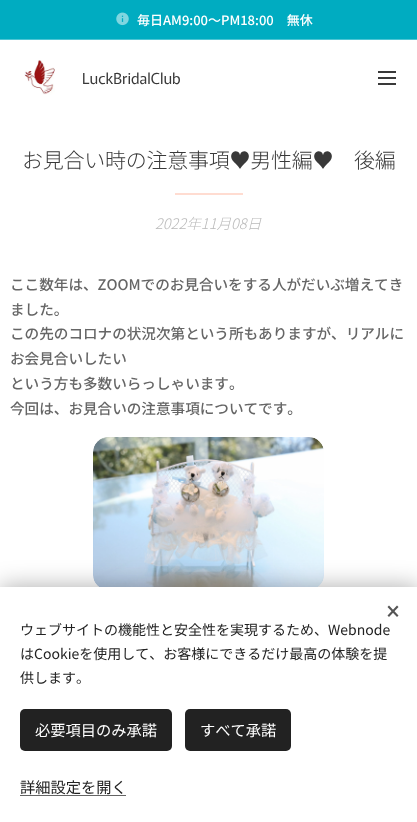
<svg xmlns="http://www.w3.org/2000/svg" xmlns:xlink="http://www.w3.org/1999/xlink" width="417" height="822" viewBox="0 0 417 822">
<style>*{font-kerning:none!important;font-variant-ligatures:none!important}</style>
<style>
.cls-1{font:500 13px Noto Sans JP;fill:#ffffff}
.cls-2{font:15.25px Murecho;fill:#393939}
.cls-3{font:300 21px Noto Sans JP;letter-spacing:-0.25px;fill:#393939}
.cls-4{font:italic 300 14.6px Noto Sans JP;fill:#bababa}
.cls-5{font:500 14.6px Noto Sans JP;fill:#666666}
.cls-6{font:14px Noto Sans JP;fill:#222222}
.cls-7{font:15.25px Noto Sans JP;fill:#ffffff}
.cls-8{font:15.25px Noto Sans JP;fill:#222222}
</style>
<rect width="100%" height="100%" fill="#ffffff"/>
<rect fill="#00acc1" x="0" y="0" width="417" height="39"/>
<image xlink:href="image0.png" x="116" y="12" width="13" height="14"/>
<rect fill="#4dc5d4" x="0" y="39" width="417" height="1"/>
<image xlink:href="image1.png" x="24" y="60" width="31" height="35"/>
<rect fill="#393939" x="378" y="77" width="18" height="2"/>
<rect fill="#393939" x="378" y="71" width="18" height="2"/>
<rect fill="#393939" x="378" y="83" width="18" height="2"/>
<rect fill="#ffdcd1" x="175" y="193" width="68" height="2"/>
<image xlink:href="image2.png" x="93" y="437" width="231" height="150"/>
<rect fill="#000000" fill-opacity="0.33" filter="blur(12.5px)" x="0" y="587" width="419" height="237"/>
<rect fill="#ffffff" x="0" y="587" width="417" height="235"/>
<path fill="#555555" d="M387.5 615.5L397 605.5L398.5 607L389 617Z"/>
<path fill="#555555" d="M389 605.5L398.5 615.5L397 617L387.5 607Z"/>
<rect fill="#222222" x="20" y="709" width="152" height="42" rx="5"/>
<rect fill="#222222" x="185" y="709" width="106" height="42" rx="5"/>
<rect fill="#646464" x="20" y="795" width="106" height="1"/>
<text class="cls-1" x="137" y="25">毎日AM9:00～PM18:00　無休</text>
<text class="cls-2" x="82" y="84">LuckBridalClub</text>
<text class="cls-3" x="22" y="168">お見合い時の注意事項♥男性編♥　後編</text>
<text class="cls-4" x="155" y="229">2022年11月08日</text>
<text class="cls-5"><tspan x="10" y="290">ここ数年は、ZOOMでのお見合いをする人がだいぶ増えてき</tspan><tspan x="10" y="315">ました。</tspan><tspan x="10" y="339">この先のコロナの状況次第という所もありますが、リアルに</tspan><tspan x="10" y="364">お会見合いしたい</tspan><tspan x="10" y="389">という方も多数いらっしゃいます。</tspan><tspan x="10" y="414">今回は、お見合いの注意事項についてです。</tspan></text>
<text class="cls-6"><tspan x="20" y="635">ウェブサイトの機能性と安全性を実現するため、Webnode</tspan><tspan x="20" y="659">はCookieを使用して、お客様にできるだけ最高の体験を提</tspan><tspan x="20" y="683">供します。</tspan></text>
<text class="cls-7" x="35" y="736">必要項目のみ承諾</text>
<text class="cls-7" x="200" y="736">すべて承諾</text>
<text class="cls-8" x="20" y="793">詳細設定を開く</text>
</svg>
